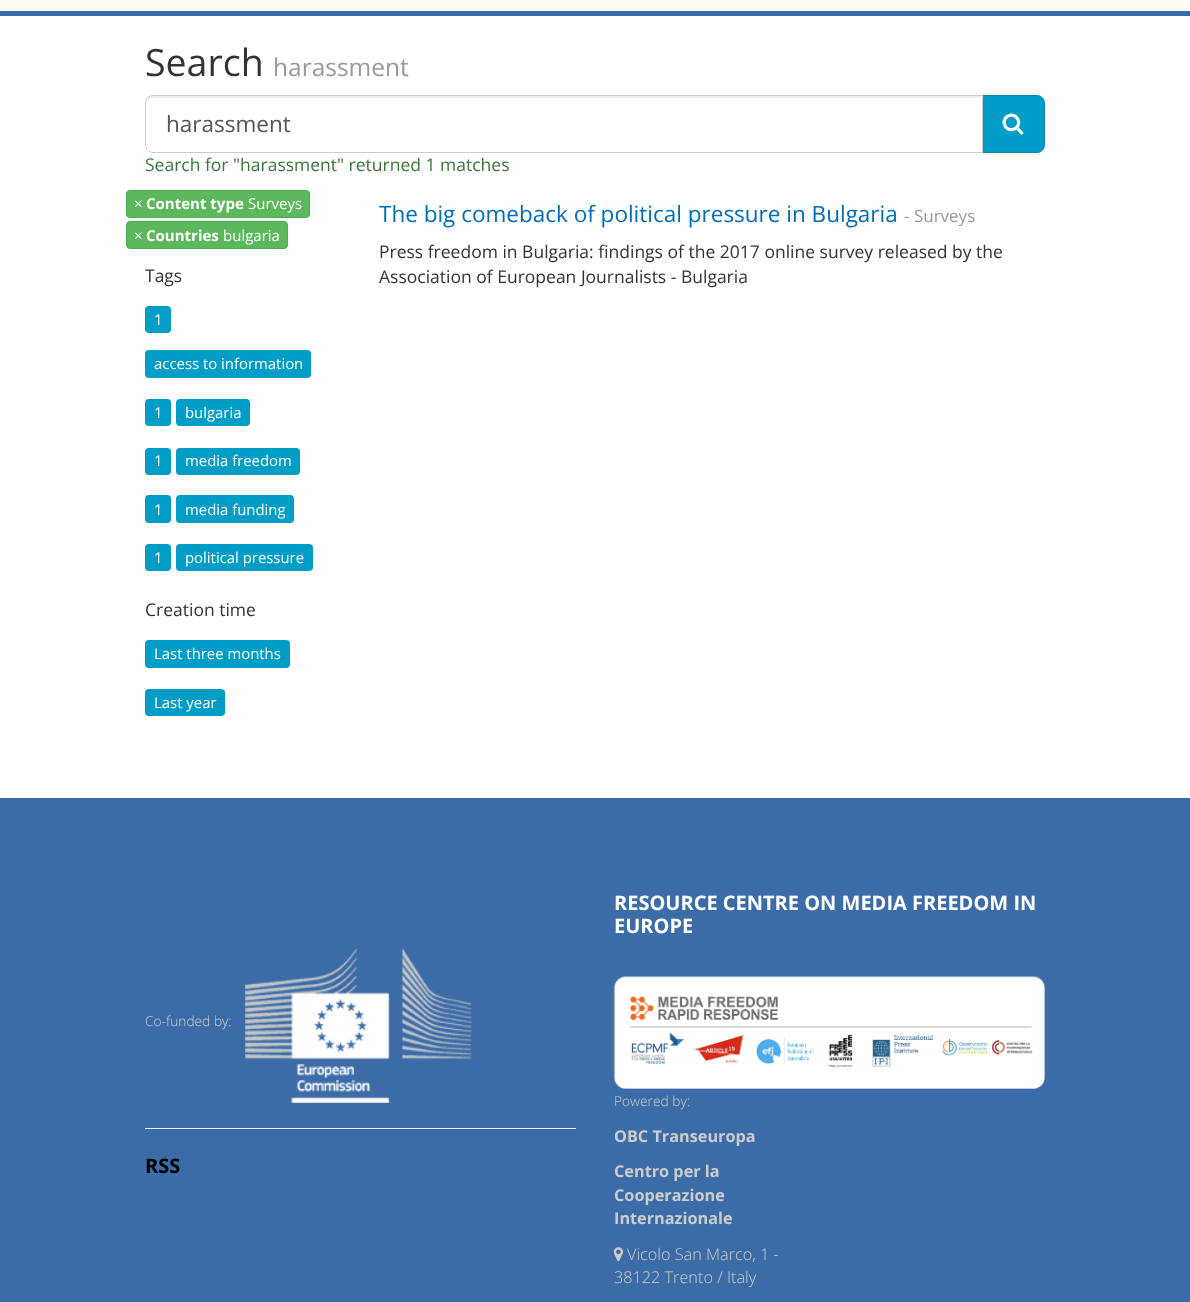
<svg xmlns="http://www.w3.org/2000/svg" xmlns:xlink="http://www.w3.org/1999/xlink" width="1190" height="1302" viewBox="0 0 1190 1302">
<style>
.cls-1{font:37.5px Open Sans;fill:#333333}
.cls-2{font:24.5px Open Sans;fill:#999999}
.cls-3{font:22.5px Open Sans;fill:#555555}
.cls-4{font:17.5px Open Sans;fill:#3c763d}
.cls-5{font:15px Open Sans;fill:#ffffff}
.cls-6{font:bold 15px Open Sans;fill:#ffffff}
.cls-7{font:17.5px Open Sans;fill:#333333}
.cls-8{font:14.9px Open Sans;fill:#ffffff}
.cls-9{font:22.5px Open Sans;fill:#006db9}
.cls-10{font:17px Open Sans;fill:#999999}
.cls-11{font:300 13.75px Open Sans;fill:#cccccc}
.cls-12{font:bold 20px Open Sans;fill:#000000}
.cls-13{font:bold 20px Open Sans;fill:#ffffff}
.cls-14{font:bold 16.25px Open Sans;fill:#cccccc}
.cls-15{font:300 16.25px Open Sans;fill:#cccccc}
</style>
<rect width="100%" height="100%" fill="#ffffff"/>
<rect fill="#fffcf6" x="0" y="0" width="1190" height="11"/>
<rect fill="#3c6ca8" x="0" y="11" width="1190" height="5"/>
<path fill="#009ec6" stroke="#008aad" d="M981.5 95.5H1037C1041 95.5 1044.5 99 1044.5 103V145C1044.5 149 1041 152.5 1037 152.5H981.5Z"/>
<path fill="#ffffff" d="M153 95H983V153H153C148.5 153 145 149.5 145 145V103C145 98.5 148.5 95 153 95Z"/>
<path fill="#ececec" d="M152 98H981V96H152C147 96 146 100 146 104C146 100 149 98 152 98Z"/>
<path fill="none" stroke="#cccccc" d="M153 95.5H982.5V152.5H153C149 152.5 145.5 149 145.5 145V103C145.5 99 149 95.5 153 95.5Z"/>
<image xlink:href="image0.png" x="1002" y="113" width="22" height="22"/>
<rect fill="#5cb85c" stroke="#4cae4c" x="126.5" y="190.5" width="183" height="27" rx="3.5"/>
<rect fill="#5cb85c" stroke="#4cae4c" x="126.5" y="221.5" width="161" height="27" rx="3.5"/>
<rect fill="#009ec6" x="145" y="306" width="26" height="27" rx="4"/>
<rect fill="#009ec6" x="145" y="350" width="166" height="28" rx="4"/>
<rect fill="#009ec6" x="145" y="399" width="26" height="27" rx="4"/>
<rect fill="#009ec6" x="176" y="399" width="74" height="27" rx="4"/>
<rect fill="#009ec6" x="145" y="448" width="26" height="27" rx="4"/>
<rect fill="#009ec6" x="176" y="448" width="124" height="27" rx="4"/>
<rect fill="#009ec6" x="145" y="495" width="26" height="28" rx="4"/>
<rect fill="#009ec6" x="176" y="495" width="118" height="28" rx="4"/>
<rect fill="#009ec6" x="145" y="544" width="26" height="27" rx="4"/>
<rect fill="#009ec6" x="176" y="544" width="137" height="27" rx="4"/>
<rect fill="#009ec6" x="145" y="640" width="145" height="28" rx="4"/>
<rect fill="#009ec6" x="145" y="689" width="80" height="27" rx="4"/>
<rect fill="#3c6ca8" x="0" y="798" width="1190" height="504"/>
<image xlink:href="image1.png" x="244" y="948" width="229" height="155"/>
<rect fill="#eeeeee" x="145" y="1128" width="431" height="1"/>
<image xlink:href="image2.png" x="613" y="976" width="432" height="113"/>
<image xlink:href="image3.png" x="613" y="1247" width="10" height="15"/>
<text class="cls-1" x="145" y="76">Search</text>
<text class="cls-2" x="273" y="76">harassment</text>
<text class="cls-3" x="166" y="132">harassment</text>
<text class="cls-4" x="145" y="171">Search for "harassment" returned 1 matches</text>
<text class="cls-5" x="134" y="209">×</text>
<text class="cls-6" x="146" y="209">Content type</text>
<text class="cls-5" x="248" y="209">Surveys</text>
<text class="cls-5" x="134" y="241">×</text>
<text class="cls-6" x="146" y="241">Countries</text>
<text class="cls-5" x="223" y="241">bulgaria</text>
<text class="cls-7" x="145" y="282">Tags</text>
<text class="cls-8" x="154" y="325">1</text>
<text class="cls-8" x="154" y="369">access to information</text>
<text class="cls-8" x="154" y="418">1</text>
<text class="cls-8" x="185" y="418">bulgaria</text>
<text class="cls-8" x="154" y="466">1</text>
<text class="cls-8" x="185" y="466">media freedom</text>
<text class="cls-8" x="154" y="515">1</text>
<text class="cls-8" x="185" y="515">media funding</text>
<text class="cls-8" x="154" y="563">1</text>
<text class="cls-8" x="185" y="563">political pressure</text>
<text class="cls-7" x="145" y="616">Creation time</text>
<text class="cls-8" x="154" y="659">Last three months</text>
<text class="cls-8" x="154" y="708">Last year</text>
<text class="cls-9" x="379" y="222">The big comeback of political pressure in Bulgaria</text>
<text class="cls-10" x="904" y="222">- Surveys</text>
<text class="cls-7"><tspan x="379" y="258">Press freedom in Bulgaria: findings of the 2017 online survey released by the</tspan><tspan x="379" y="283">Association of European Journalists - Bulgaria</tspan></text>
<text class="cls-11" x="145" y="1026">Co-funded by:</text>
<text class="cls-12" x="145" y="1173">RSS</text>
<text class="cls-13"><tspan x="614" y="910">RESOURCE CENTRE ON MEDIA FREEDOM IN</tspan><tspan x="614" y="933">EUROPE</tspan></text>
<text class="cls-11" x="614" y="1106">Powered by:</text>
<text class="cls-14" x="614" y="1142">OBC Transeuropa</text>
<text class="cls-14"><tspan x="614" y="1177">Centro per la</tspan><tspan x="614" y="1201">Cooperazione</tspan><tspan x="614" y="1224">Internazionale</tspan></text>
<text class="cls-15" x="627" y="1260">Vicolo San Marco, 1 -</text>
<text class="cls-15" x="614" y="1283">38122 Trento / Italy</text>
</svg>
